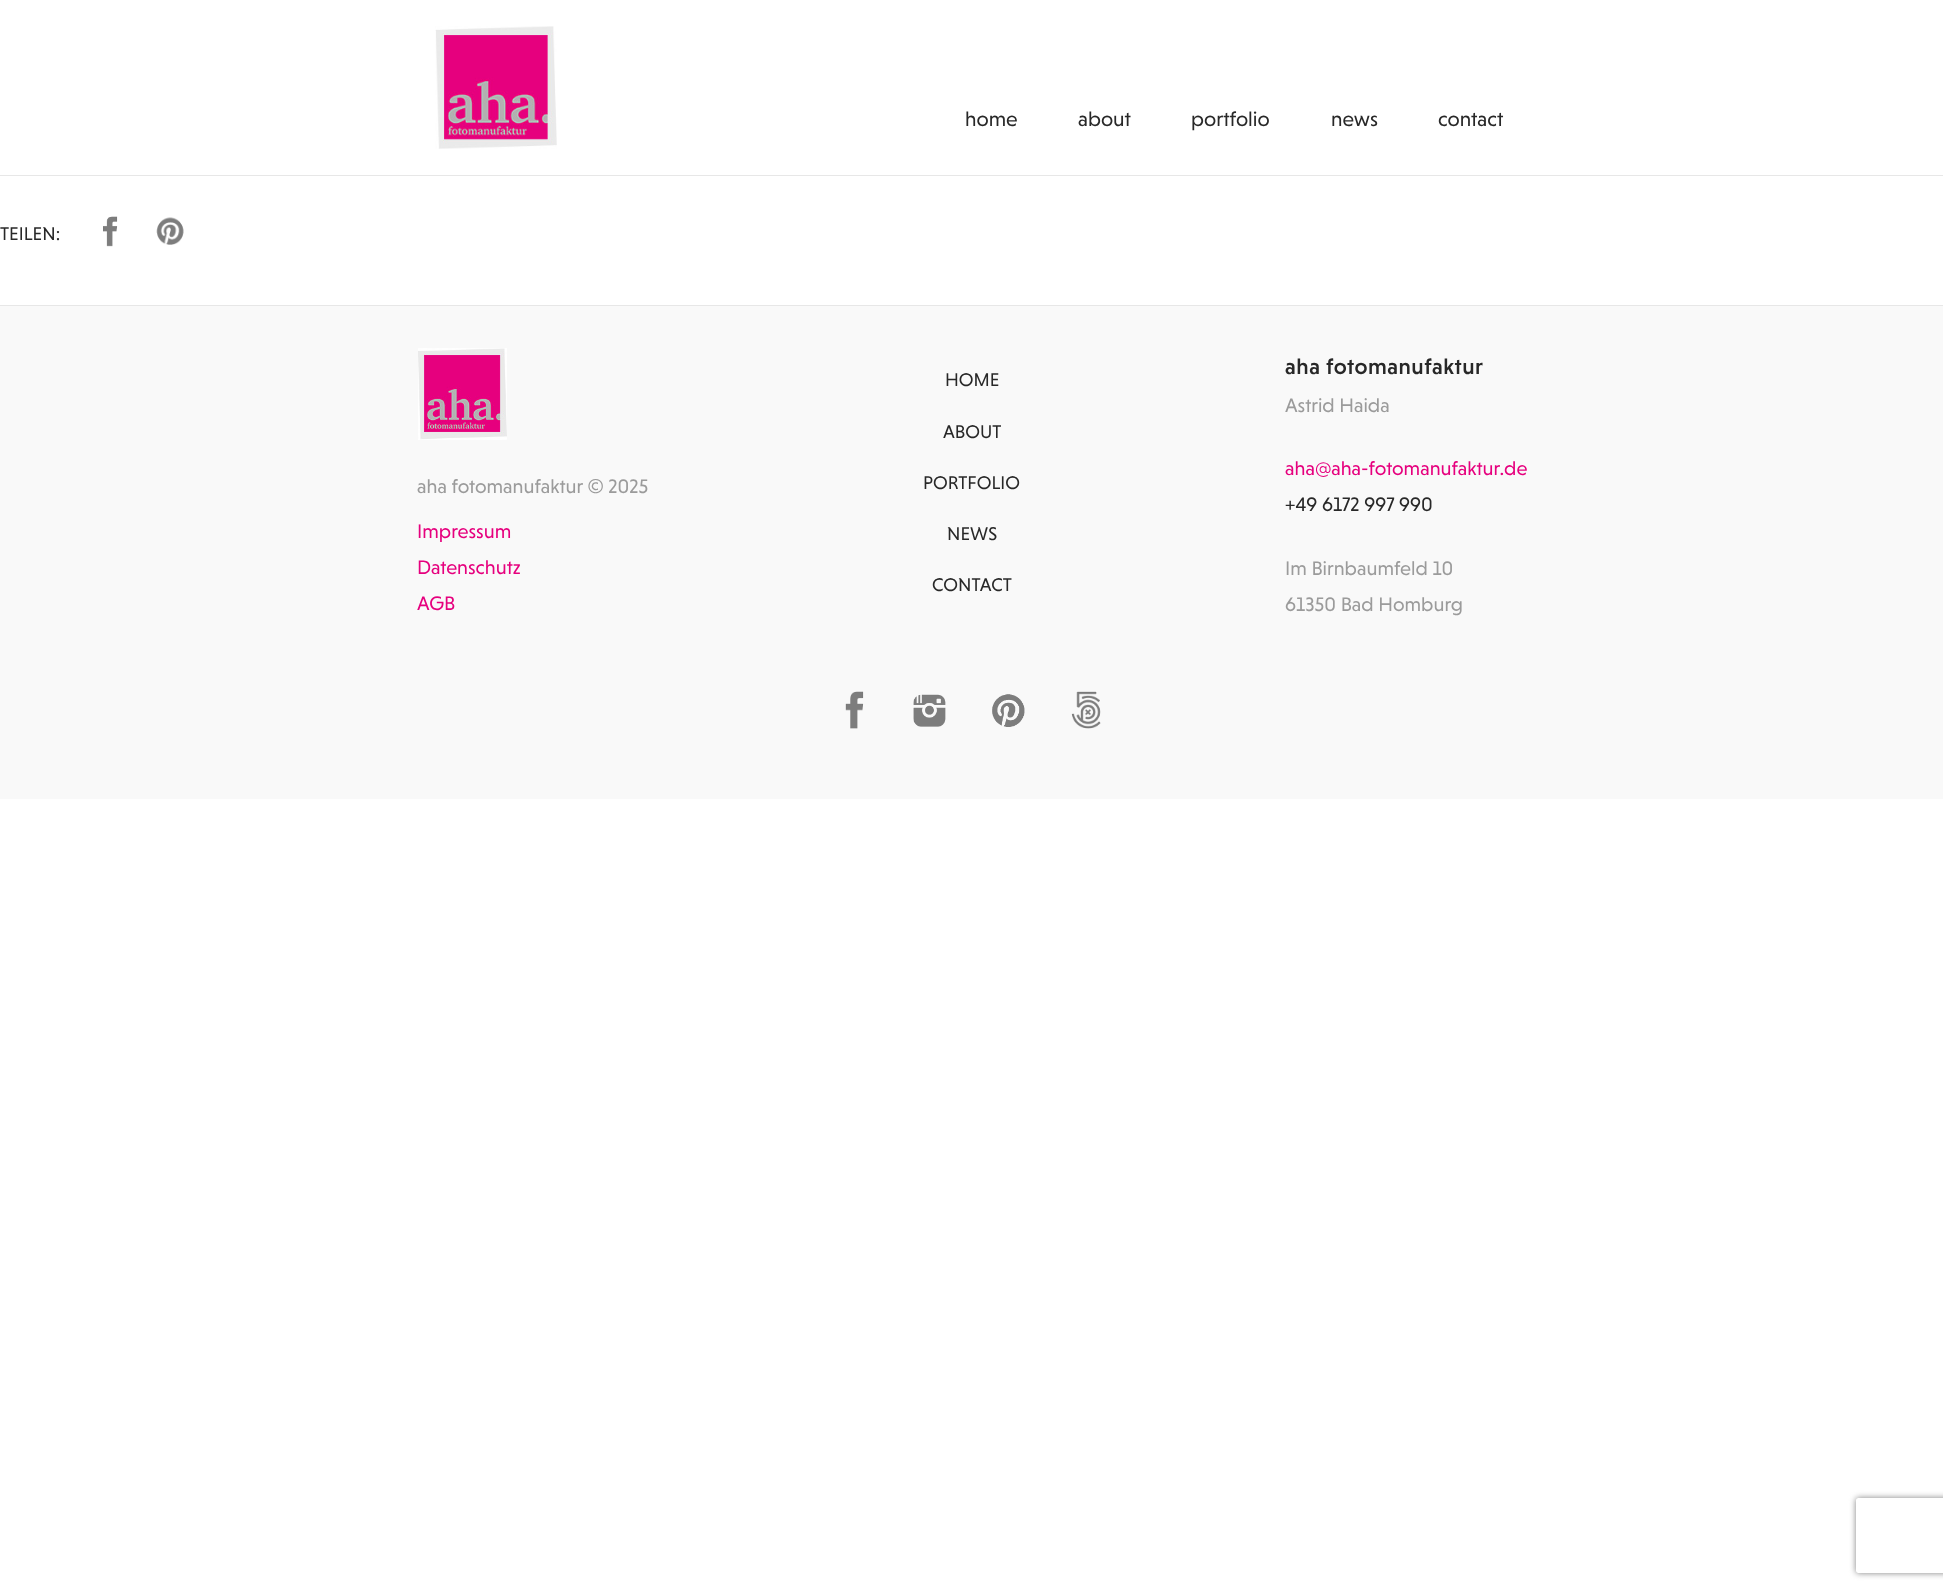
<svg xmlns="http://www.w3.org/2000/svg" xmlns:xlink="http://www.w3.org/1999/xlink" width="1943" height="1589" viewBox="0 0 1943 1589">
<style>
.cls-1{font:21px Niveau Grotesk;fill:#282828}
.cls-2{font:18.75px Niveau Grotesk;fill:#282828}
.cls-3{font:20px Niveau Grotesk;fill:#9b9b9b}
.cls-4{font:20px Niveau Grotesk;fill:#e6007e}
.cls-5{font:500 22.5px Niveau Grotesk;letter-spacing:0.5px;fill:#282828}
.cls-6{font:20px Niveau Grotesk;fill:#282828}
</style>
<defs>
<clipPath id="clip1"><path d="M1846 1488H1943V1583H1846ZM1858.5 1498H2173.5C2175 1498 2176 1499 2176 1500.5V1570.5C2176 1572 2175 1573 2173.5 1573H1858.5C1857 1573 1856 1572 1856 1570.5V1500.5C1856 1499 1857 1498 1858.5 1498Z" clip-rule="evenodd"/></clipPath>
</defs>
<rect width="100%" height="100%" fill="#ffffff"/>
<rect fill="#e7e7e7" x="0" y="175" width="1943" height="1"/>
<image xlink:href="image0.png" x="435" y="26" width="122" height="123"/>
<image xlink:href="image1.png" x="103" y="216" width="15" height="31"/>
<image xlink:href="image2.png" x="156" y="217" width="28" height="28"/>
<rect fill="#f9f9f9" x="0" y="306" width="1943" height="493"/>
<rect fill="#e7e7e7" x="0" y="305" width="1943" height="1"/>
<image xlink:href="image3.png" x="418" y="348" width="89" height="92"/>
<image xlink:href="image4.png" x="845" y="691" width="19" height="38"/>
<image xlink:href="image5.png" x="913" y="694" width="33" height="33"/>
<image xlink:href="image6.png" x="992" y="694" width="33" height="33"/>
<image xlink:href="image7.png" x="1071" y="691" width="30" height="38"/>
<g clip-path="url(#clip1)">
<rect fill="#808080" filter="blur(3px)" x="1856" y="1498" width="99" height="75" rx="2.5"/>
</g>
<text class="cls-1" x="965" y="126">home</text>
<text class="cls-1" x="1078" y="126">about</text>
<text class="cls-1" x="1191" y="126">portfolio</text>
<text class="cls-1" x="1331" y="126">news</text>
<text class="cls-1" x="1438" y="126">contact</text>
<text class="cls-2" x="0" y="240">TEILEN:</text>
<text class="cls-3" x="417" y="493">aha fotomanufaktur © 2025</text>
<text class="cls-4"><tspan x="417" y="538">Impressum</tspan><tspan x="417" y="574">Datenschutz</tspan><tspan x="417" y="610">AGB</tspan></text>
<text class="cls-2" x="945" y="386">HOME</text>
<text class="cls-2" x="943" y="438">ABOUT</text>
<text class="cls-2" x="923" y="489">PORTFOLIO</text>
<text class="cls-2" x="947" y="540">NEWS</text>
<text class="cls-2" x="932" y="591">CONTACT</text>
<text class="cls-5" x="1285" y="374">aha fotomanufaktur</text>
<text class="cls-3" x="1285" y="412">Astrid Haida</text>
<text class="cls-4" x="1285" y="475">aha@aha-fotomanufaktur.de</text>
<text class="cls-6" x="1285" y="511">+49 6172 997 990</text>
<text class="cls-3"><tspan x="1285" y="575">Im Birnbaumfeld 10</tspan><tspan x="1285" y="611">61350 Bad Homburg</tspan></text>
</svg>
